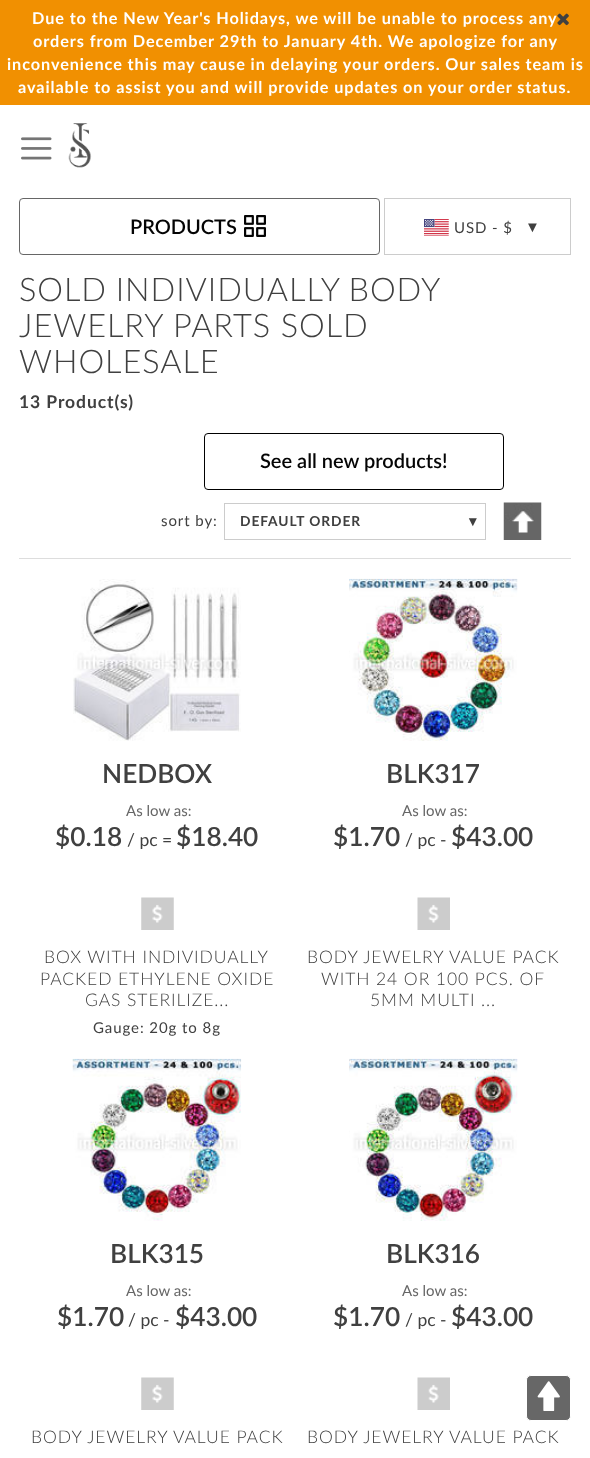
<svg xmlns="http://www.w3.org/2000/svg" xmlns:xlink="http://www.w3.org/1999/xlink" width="590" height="1458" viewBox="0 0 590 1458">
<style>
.cls-1{font:bold 16.25px Lato;letter-spacing:0.92px;fill:#ffffff}
.cls-2{font:15px Lato;letter-spacing:0.92px;fill:#404040}
.cls-3{font:15px Liberation Serif;letter-spacing:0.92px;fill:#404040}
.cls-4{font:600 20px Lato;fill:#040404}
.cls-5{font:300 32.5px Lato;letter-spacing:0.92px;fill:#404040}
.cls-6{font:bold 17.5px Lato;letter-spacing:0.92px;fill:#404040}
.cls-7{font:bold 13.75px Lato;letter-spacing:0.92px;fill:#404040}
.cls-8{font:bold 13.75px Liberation Sans;letter-spacing:0.92px;fill:#404040}
.cls-9{font:600 26.25px Lato;fill:#404040}
.cls-10{font:15px Lato;fill:#666666}
.cls-11{font:17.5px Lato;fill:#404040}
.cls-12{font:300 17.5px Lato;letter-spacing:0.92px;fill:#404040}
</style>
<rect width="100%" height="100%" fill="#ffffff"/>
<rect fill="#f19001" x="0" y="0" width="590" height="105"/>
<image xlink:href="image0.png" x="557" y="13" width="12" height="13"/>
<image xlink:href="image1.png" x="21" y="137" width="31" height="23"/>
<image xlink:href="image2.png" x="68" y="123" width="24" height="45"/>
<rect fill="none" stroke="#cccccc" x="384.5" y="198.5" width="186" height="56"/>
<image xlink:href="image3.png" x="424" y="219" width="25" height="17"/>
<rect fill="none" stroke="#666666" x="19.5" y="198.5" width="360" height="56" rx="3.5"/>
<image xlink:href="image4.png" x="244" y="215" width="22" height="22"/>
<rect fill="none" stroke="#000000" x="204.5" y="433.5" width="299" height="56" rx="3.5"/>
<rect fill="none" stroke="#cccccc" x="224.5" y="503.5" width="261" height="36"/>
<image xlink:href="image5.png" x="503" y="502" width="39" height="38"/>
<rect fill="#dddddd" x="19" y="558" width="552" height="1"/>
<image xlink:href="image6.png" x="73" y="579" width="168" height="162"/>
<image xlink:href="image7.png" x="141" y="897" width="33" height="33"/>
<image xlink:href="image8.png" x="349" y="578" width="169" height="163"/>
<image xlink:href="image9.png" x="417" y="897" width="33" height="33"/>
<image xlink:href="image10.png" x="72" y="1058" width="170" height="163"/>
<image xlink:href="image7.png" x="141" y="1377" width="33" height="33"/>
<image xlink:href="image11.png" x="349" y="1058" width="169" height="163"/>
<image xlink:href="image9.png" x="417" y="1377" width="33" height="33"/>
<rect fill="#676767" stroke="#ffffff" x="526.5" y="1375.5" width="44" height="45" rx="4.5"/>
<image xlink:href="image12.png" x="537" y="1381" width="23" height="30"/>
<text class="cls-1" x="32" y="24">Due to the New Year's Holidays, we will be unable to process any</text>
<text class="cls-1" x="33" y="47">orders from December 29th to January 4th. We apologize for any</text>
<text class="cls-1" x="7" y="70">inconvenience this may cause in delaying your orders. Our sales team is</text>
<text class="cls-1" x="18" y="93">available to assist you and will provide updates on your order status.</text>
<text class="cls-2" x="454" y="233">USD - $</text>
<text class="cls-3" x="525" y="232">▼</text>
<text class="cls-4" x="130" y="234">PRODUCTS</text>
<text class="cls-5"><tspan x="19" y="301" word-spacing="-1">SOLD INDIVIDUALLY BODY</tspan><tspan x="19" y="337">JEWELRY PARTS SOLD</tspan><tspan x="19" y="373">WHOLESALE</tspan></text>
<text class="cls-6" x="19" y="408">13 Product(s)</text>
<text class="cls-4" x="260" y="468">See all new products!</text>
<text class="cls-2" x="161" y="526">sort by:</text>
<text class="cls-7" x="240" y="526">DEFAULT ORDER</text>
<text class="cls-8" x="466" y="526">▼</text>
<text class="cls-9" x="102" y="783">NEDBOX</text>
<text class="cls-10" x="126" y="816">As low as:</text>
<text class="cls-9" x="55" y="846">$0.18</text>
<text class="cls-9" x="176" y="846">$18.40</text>
<text class="cls-11" x="127" y="846">/ pc =</text>
<text class="cls-12" x="44" y="963">BOX WITH INDIVIDUALLY</text>
<text class="cls-12" x="40" y="985">PACKED ETHYLENE OXIDE</text>
<text class="cls-12" x="85" y="1006">GAS STERILIZE...</text>
<text class="cls-2" x="93" y="1033">Gauge: 20g to 8g</text>
<text class="cls-9" x="386" y="783">BLK317</text>
<text class="cls-10" x="402" y="816">As low as:</text>
<text class="cls-9" x="333" y="846">$1.70</text>
<text class="cls-9" x="451" y="846">$43.00</text>
<text class="cls-11" x="405" y="846">/ pc -</text>
<text class="cls-12" x="307" y="963">BODY JEWELRY VALUE PACK</text>
<text class="cls-12" x="321" y="985">WITH 24 OR 100 PCS. OF</text>
<text class="cls-12" x="370" y="1006">5MM MULTI ...</text>
<text class="cls-9" x="110" y="1263">BLK315</text>
<text class="cls-10" x="126" y="1296">As low as:</text>
<text class="cls-9" x="57" y="1326">$1.70</text>
<text class="cls-9" x="175" y="1326">$43.00</text>
<text class="cls-11" x="128" y="1326">/ pc -</text>
<text class="cls-12" x="31" y="1443">BODY JEWELRY VALUE PACK</text>
<text class="cls-9" x="386" y="1263">BLK316</text>
<text class="cls-10" x="402" y="1296">As low as:</text>
<text class="cls-9" x="333" y="1326">$1.70</text>
<text class="cls-9" x="451" y="1326">$43.00</text>
<text class="cls-11" x="405" y="1326">/ pc -</text>
<text class="cls-12" x="307" y="1443">BODY JEWELRY VALUE PACK</text>
</svg>
